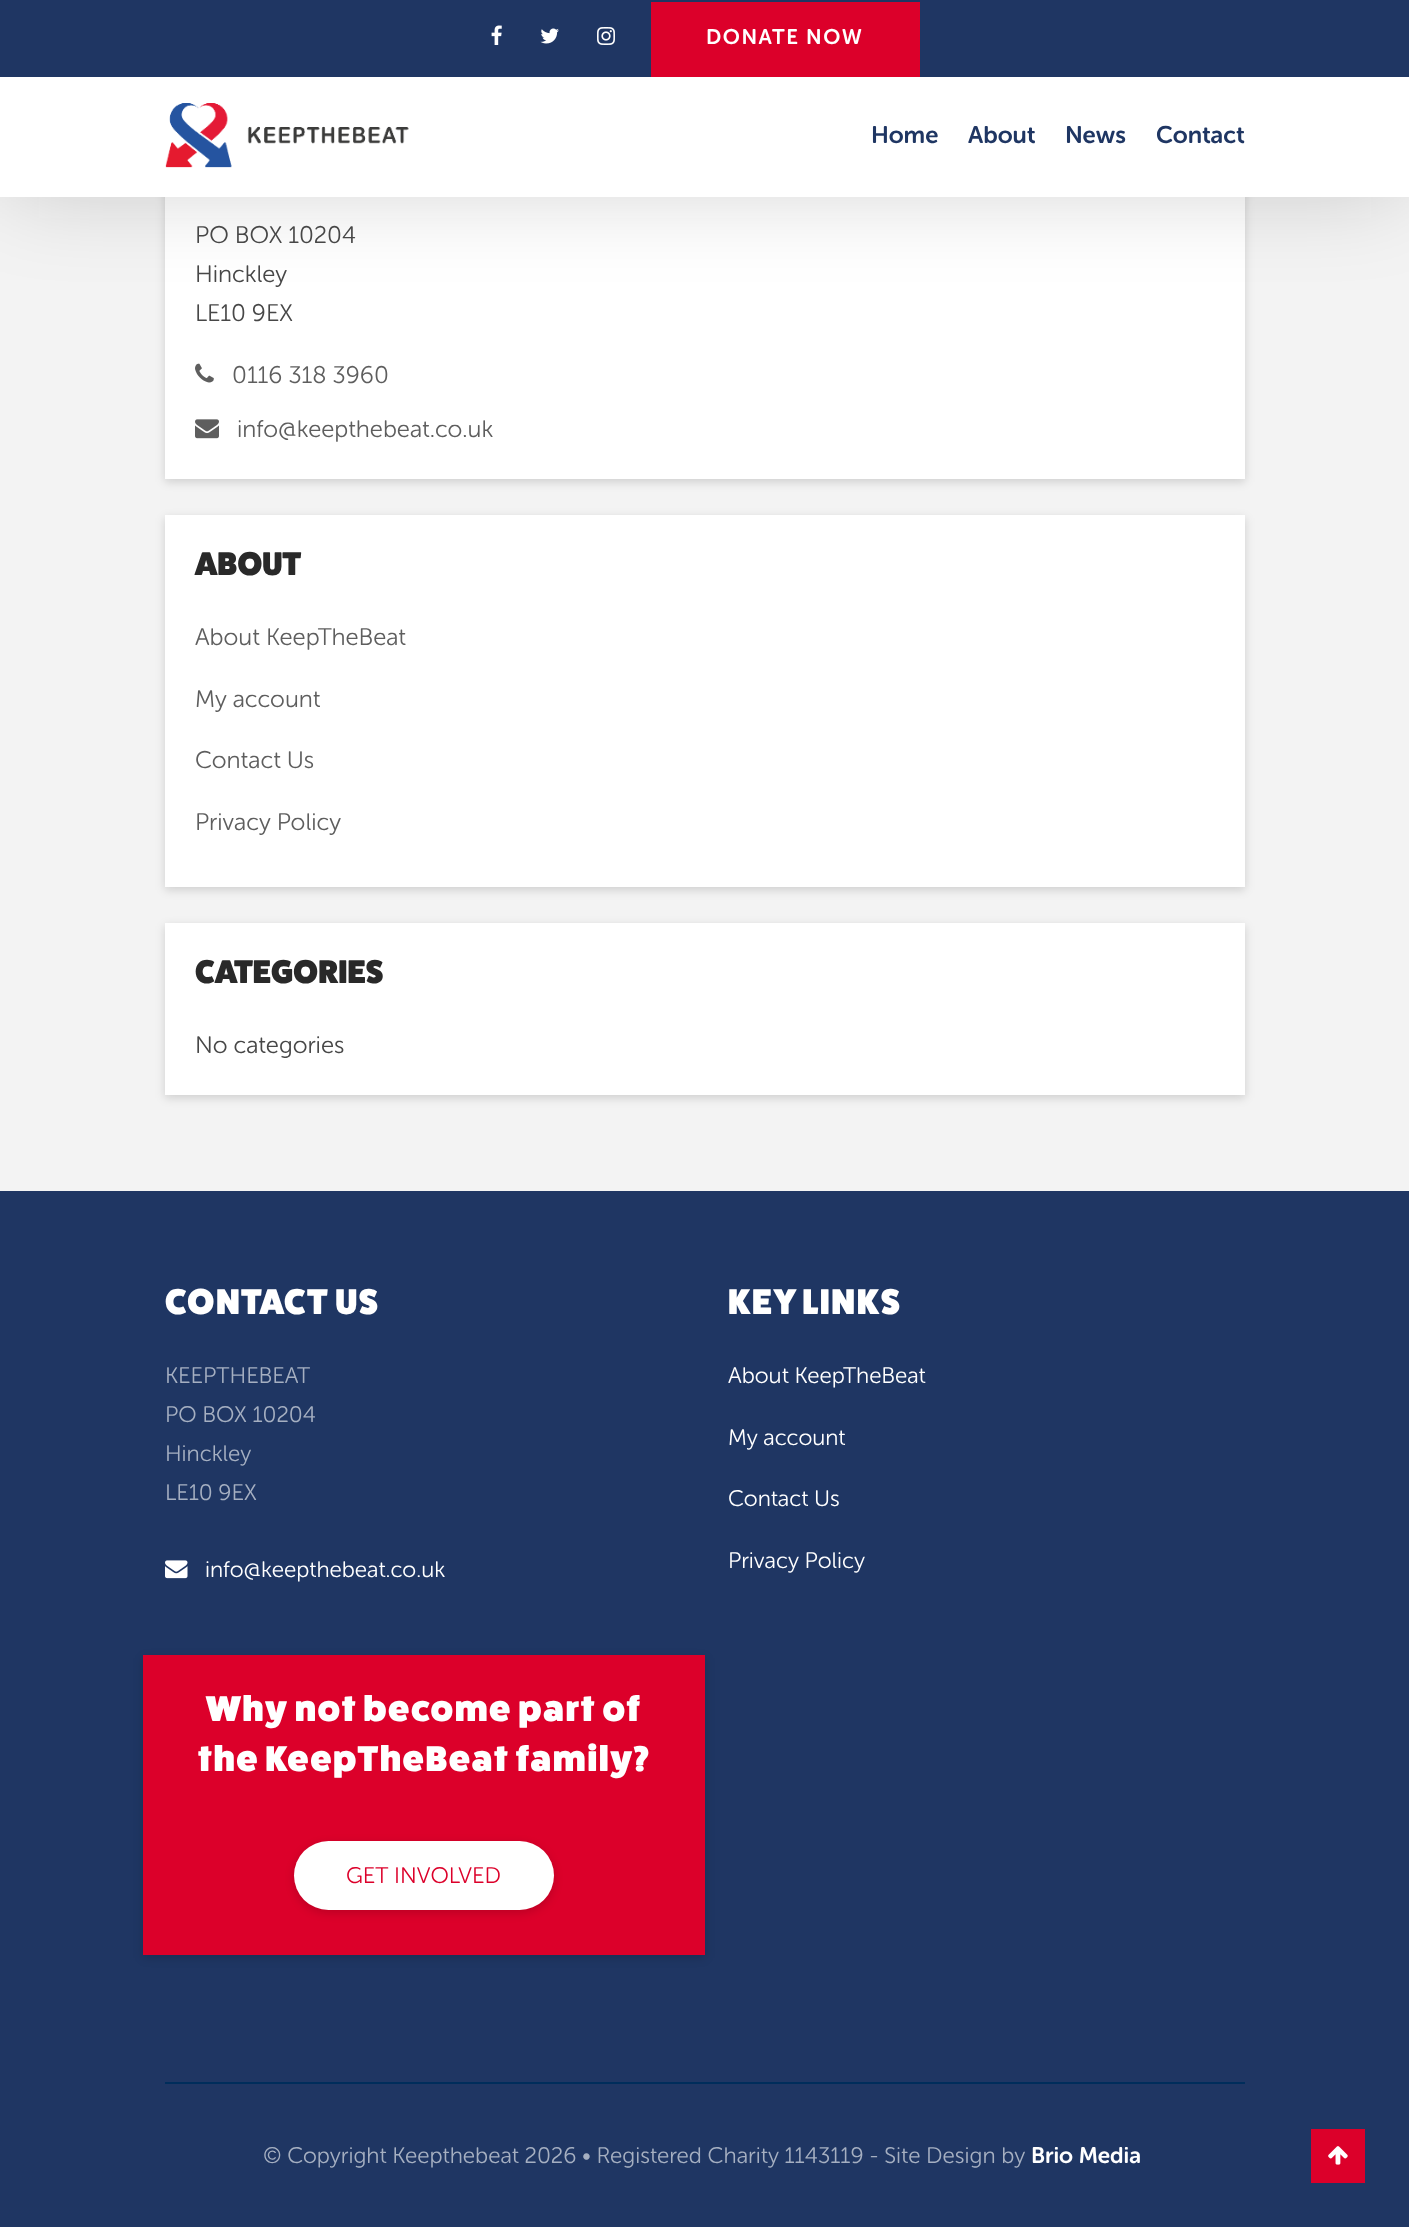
<svg xmlns="http://www.w3.org/2000/svg" xmlns:xlink="http://www.w3.org/1999/xlink" width="1409" height="2227" viewBox="0 0 1409 2227">
<style>
.cls-1{font:600 21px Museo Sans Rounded;letter-spacing:1.5px;fill:#ffffff}
.cls-2{font:600 24px Museo Sans Rounded;fill:#1f3663}
.cls-3{font:300 24px Museo Sans Rounded;fill:#474747}
.cls-4{font:300 24px Museo Sans Rounded;fill:#5e5e5e}
.cls-5{font:900 33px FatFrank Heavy;fill:#292929}
.cls-6{font:900 36px FatFrank Heavy;letter-spacing:1.5px;fill:#ffffff}
.cls-7{font:300 22.5px Museo Sans Rounded;fill:#a5afc1}
.cls-8{font:300 22.5px Museo Sans Rounded;fill:#ffffff}
.cls-9{font:300 22.5px Museo Sans Rounded;fill:#dc002a}
.cls-10{font:600 22.5px Museo Sans Rounded;fill:#ffffff}
</style>
<rect width="100%" height="100%" fill="#f3f3f3"/>
<rect fill="#000000" fill-opacity="0.15" filter="blur(5px)" x="165" y="77" width="1080" height="405"/>
<rect fill="#ffffff" x="165" y="197" width="1080" height="282"/>
<rect fill="#0a0a0a" fill-opacity="0.2" filter="blur(45px)" x="9" y="9" width="1392" height="179"/>
<rect fill="#ffffff" x="0" y="77" width="1409" height="120"/>
<rect fill="#1f3663" x="0" y="0" width="1409" height="77"/>
<image xlink:href="image0.png" x="491" y="25" width="11" height="20"/>
<image xlink:href="image1.png" x="540" y="28" width="19" height="16"/>
<image xlink:href="image2.png" x="597" y="27" width="18" height="18"/>
<rect fill="#dc002a" x="651" y="2" width="269" height="75"/>
<image xlink:href="image3.png" x="165" y="103" width="244" height="65"/>
<image xlink:href="image4.png" x="195" y="363" width="19" height="20"/>
<image xlink:href="image5.png" x="195" y="419" width="24" height="20"/>
<rect fill="#000000" fill-opacity="0.15" filter="blur(5px)" x="165" y="518" width="1080" height="372"/>
<rect fill="#ffffff" x="165" y="515" width="1080" height="372"/>
<rect fill="#000000" fill-opacity="0.15" filter="blur(5px)" x="165" y="926" width="1080" height="172"/>
<rect fill="#ffffff" x="165" y="923" width="1080" height="172"/>
<rect fill="#1f3663" x="0" y="1191" width="1409" height="1036"/>
<image xlink:href="image6.png" x="165" y="1560" width="23" height="19"/>
<rect fill="#000000" fill-opacity="0.15" filter="blur(5px)" x="143" y="1658" width="562" height="300"/>
<rect fill="#dc002a" x="143" y="1655" width="562" height="300"/>
<rect fill="#000000" fill-opacity="0.15" filter="blur(5px)" x="294" y="1844" width="260" height="69" rx="34.5"/>
<rect fill="#ffffff" x="294" y="1841" width="260" height="69" rx="34.5"/>
<rect fill="#002d5b" x="165" y="2082" width="1080" height="2"/>
<rect fill="#dc002a" x="1311" y="2129" width="54" height="54"/>
<image xlink:href="image7.png" x="1328" y="2146" width="20" height="19"/>
<text class="cls-1" x="706" y="44">DONATE NOW</text>
<text class="cls-2" x="871" y="143">Home</text>
<text class="cls-2" x="968" y="143">About</text>
<text class="cls-2" x="1065" y="143">News</text>
<text class="cls-2" x="1156" y="143">Contact</text>
<text class="cls-3"><tspan x="195" y="243">PO BOX 10204</tspan><tspan x="195" y="282">Hinckley</tspan><tspan x="195" y="321">LE10 9EX</tspan></text>
<text class="cls-4" x="232" y="383">0116 318 3960</text>
<text class="cls-4" x="237" y="437">info@keepthebeat.co.uk</text>
<text class="cls-5" x="195" y="575">ABOUT</text>
<text class="cls-4" x="195" y="645">About KeepTheBeat</text>
<text class="cls-4" x="195" y="707">My account</text>
<text class="cls-4" x="195" y="768">Contact Us</text>
<text class="cls-4" x="195" y="830">Privacy Policy</text>
<text class="cls-5" x="195" y="983">CATEGORIES</text>
<text class="cls-3" x="195" y="1053">No categories</text>
<text class="cls-6" x="165" y="1314">CONTACT US</text>
<text class="cls-7"><tspan x="165" y="1383">KEEPTHEBEAT</tspan><tspan x="165" y="1422">PO BOX 10204</tspan><tspan x="165" y="1461">Hinckley</tspan><tspan x="165" y="1500">LE10 9EX</tspan></text>
<text class="cls-8" x="205" y="1577">info@keepthebeat.co.uk</text>
<text class="cls-6" x="728" y="1314">KEY LINKS</text>
<text class="cls-8" x="728" y="1383">About KeepTheBeat</text>
<text class="cls-8" x="728" y="1445">My account</text>
<text class="cls-8" x="728" y="1506">Contact Us</text>
<text class="cls-8" x="728" y="1568">Privacy Policy</text>
<text class="cls-6" x="206" y="1721">Why not become part of</text>
<text class="cls-6" x="198" y="1771">the KeepTheBeat family?</text>
<text class="cls-9" x="346" y="1883">GET INVOLVED</text>
<text class="cls-7" x="263" y="2163">© Copyright Keepthebeat 2026 • Registered Charity 1143119 - Site Design by</text>
<text class="cls-10" x="1031" y="2163">Brio Media</text>
</svg>
